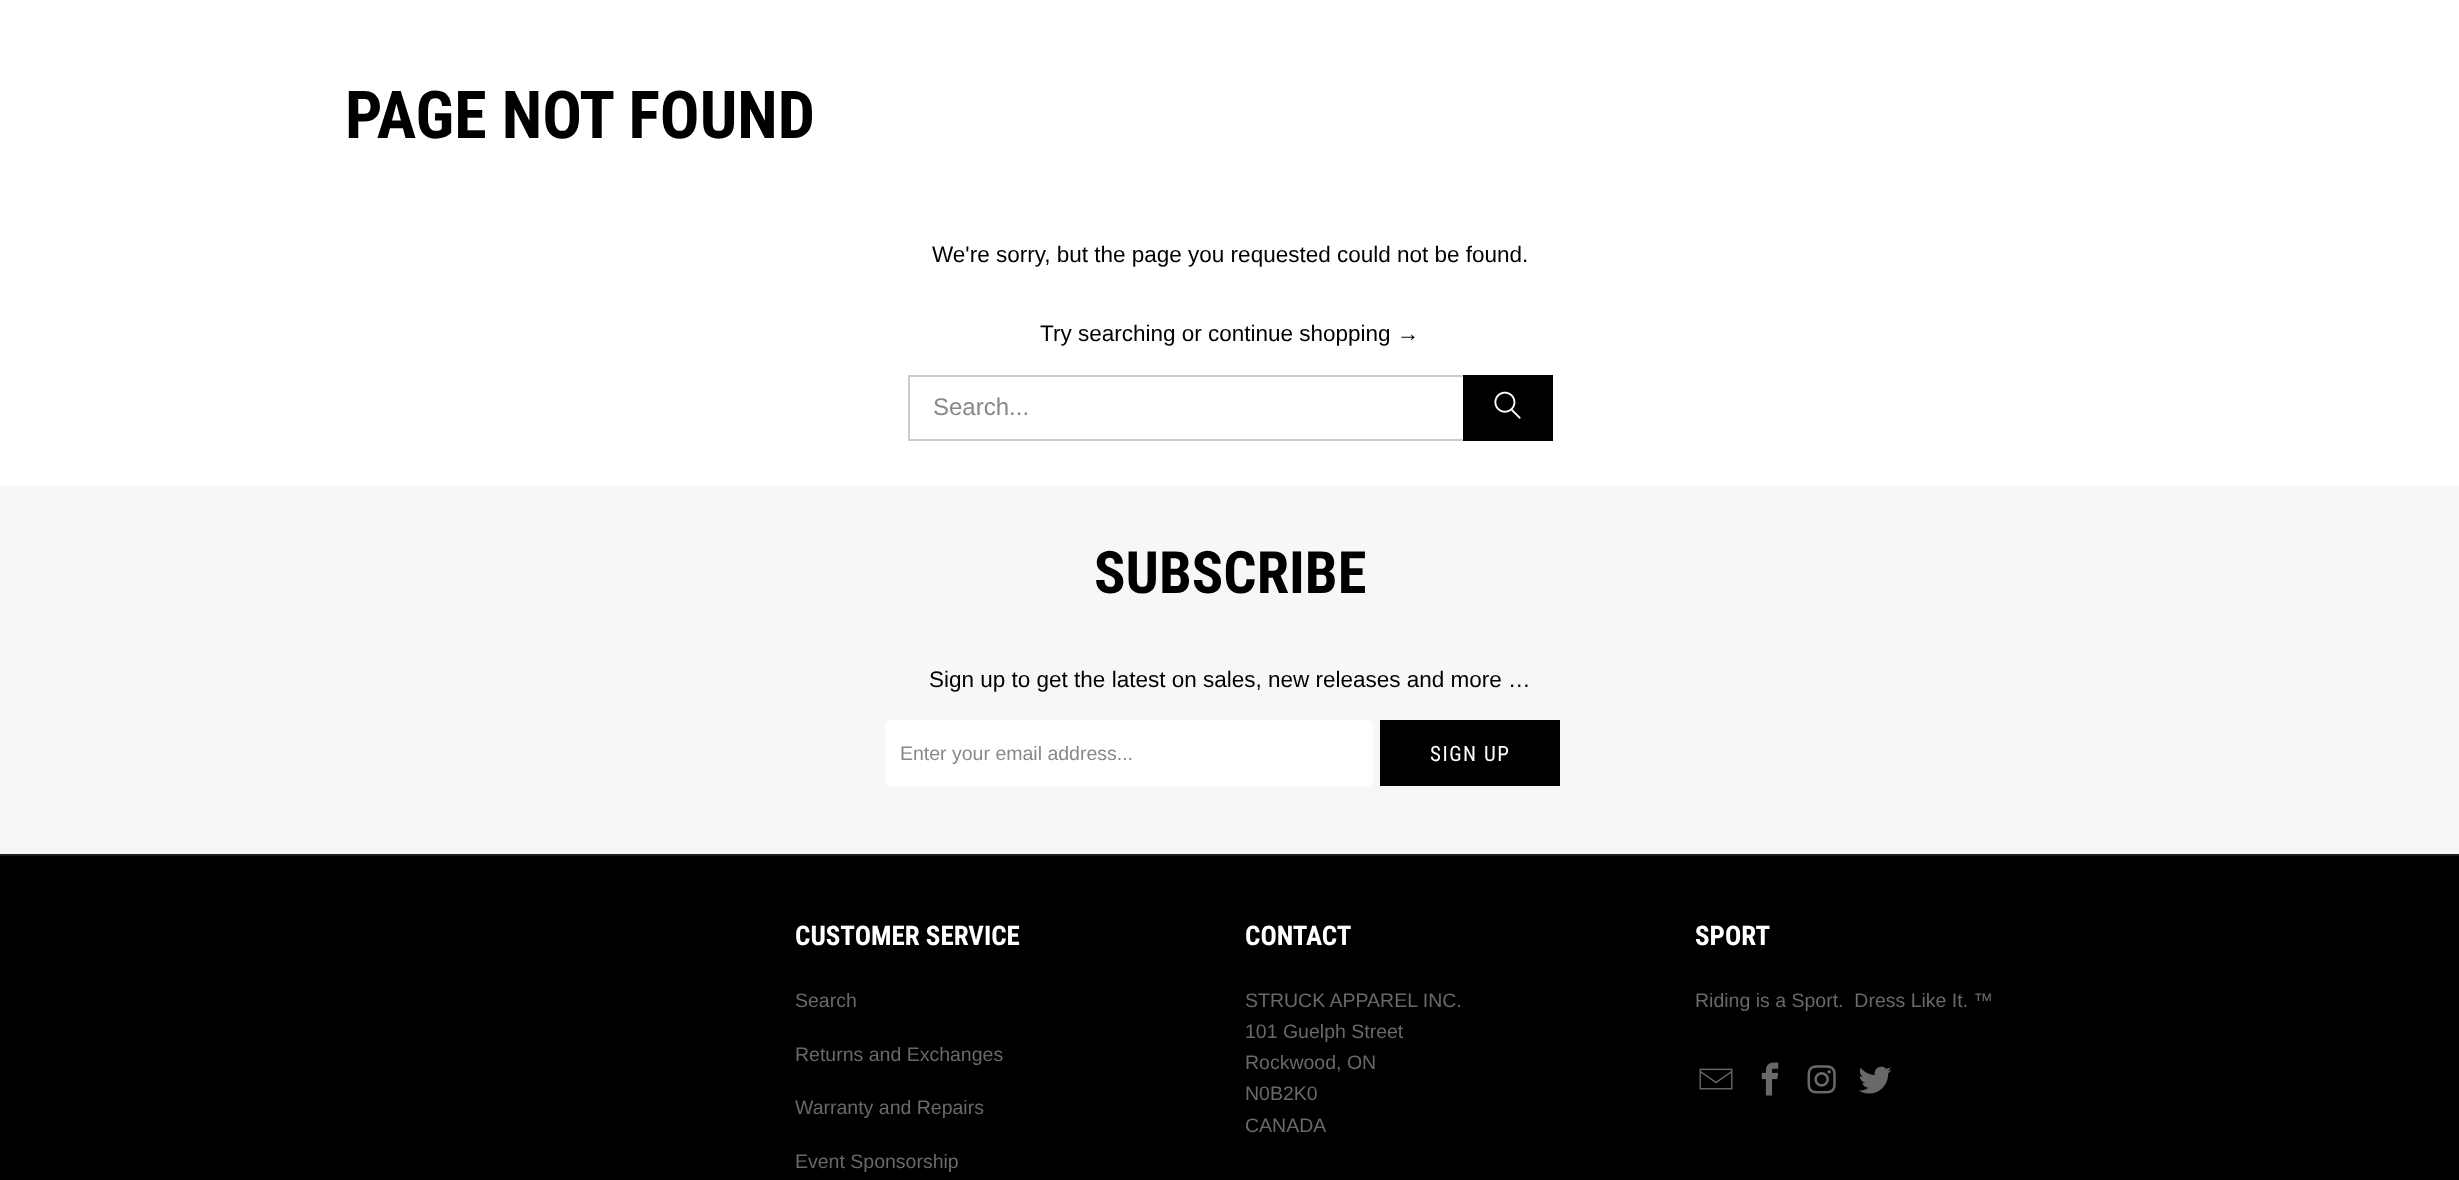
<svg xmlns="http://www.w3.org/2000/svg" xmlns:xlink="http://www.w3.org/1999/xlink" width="2459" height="1180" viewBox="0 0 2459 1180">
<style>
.cls-1{font:bold 66px Roboto Condensed;fill:#000000}
.cls-2{font:22.5px Liberation Sans;fill:#000000}
.cls-3{font:24px Liberation Sans;fill:#888888}
.cls-4{font:bold 58.5px Roboto Condensed;fill:#000000}
.cls-5{font:19.5px Liberation Sans;fill:#888888}
.cls-6{font:21px Roboto Condensed;letter-spacing:1.5px;fill:#ffffff}
.cls-7{font:bold 27px Roboto Condensed;fill:#ffffff}
.cls-8{font:19.5px Liberation Sans;fill:#696969}
</style>
<rect width="100%" height="100%" fill="#ffffff"/>
<rect fill="none" stroke="#cccccc" stroke-width="2" x="909" y="376" width="643" height="64"/>
<rect fill="#000000" x="1463" y="375" width="90" height="66"/>
<image xlink:href="image0.png" x="1494" y="391" width="27" height="28"/>
<rect fill="#f7f7f7" x="0" y="486" width="2459" height="368"/>
<rect fill="#ffffff" x="885" y="720" width="488" height="66" rx="5"/>
<rect fill="#000000" x="1380" y="720" width="180" height="66"/>
<rect fill="#000000" x="0" y="856" width="2459" height="324"/>
<rect fill="#1b1f23" x="0" y="854" width="2459" height="2"/>
<image xlink:href="image1.png" x="1699" y="1068" width="34" height="22"/>
<image xlink:href="image2.png" x="1761" y="1062" width="18" height="34"/>
<image xlink:href="image3.png" x="1807" y="1065" width="29" height="29"/>
<image xlink:href="image4.png" x="1858" y="1066" width="34" height="28"/>
<text class="cls-1" x="345" y="138">PAGE NOT FOUND</text>
<text class="cls-2" x="932" y="262">We're sorry, but the page you requested could not be found.</text>
<text class="cls-2" x="1040" y="341">Try searching or continue shopping →</text>
<text class="cls-3" x="933" y="415">Search...</text>
<text class="cls-4" x="1094" y="593">SUBSCRIBE</text>
<text class="cls-2" x="929" y="687">Sign up to get the latest on sales, new releases and more …</text>
<text class="cls-5" x="900" y="760">Enter your email address...</text>
<text class="cls-6" x="1430" y="761">SIGN UP</text>
<text class="cls-7" x="795" y="945">CUSTOMER SERVICE</text>
<text class="cls-8" x="795" y="1007">Search</text>
<text class="cls-8" x="795" y="1061">Returns and Exchanges</text>
<text class="cls-8" x="795" y="1114">Warranty and Repairs</text>
<text class="cls-8" x="795" y="1168">Event Sponsorship</text>
<text class="cls-7" x="1245" y="945">CONTACT</text>
<text class="cls-8"><tspan x="1245" y="1007">STRUCK APPAREL INC.</tspan><tspan x="1245" y="1038">101 Guelph Street</tspan><tspan x="1245" y="1069">Rockwood, ON</tspan><tspan x="1245" y="1100">N0B2K0</tspan><tspan x="1245" y="1132">CANADA</tspan></text>
<text class="cls-7" x="1695" y="945">SPORT</text>
<text class="cls-8" xml:space="preserve" x="1695" y="1007">Riding is a Sport.  Dress Like It. ™</text>
</svg>
